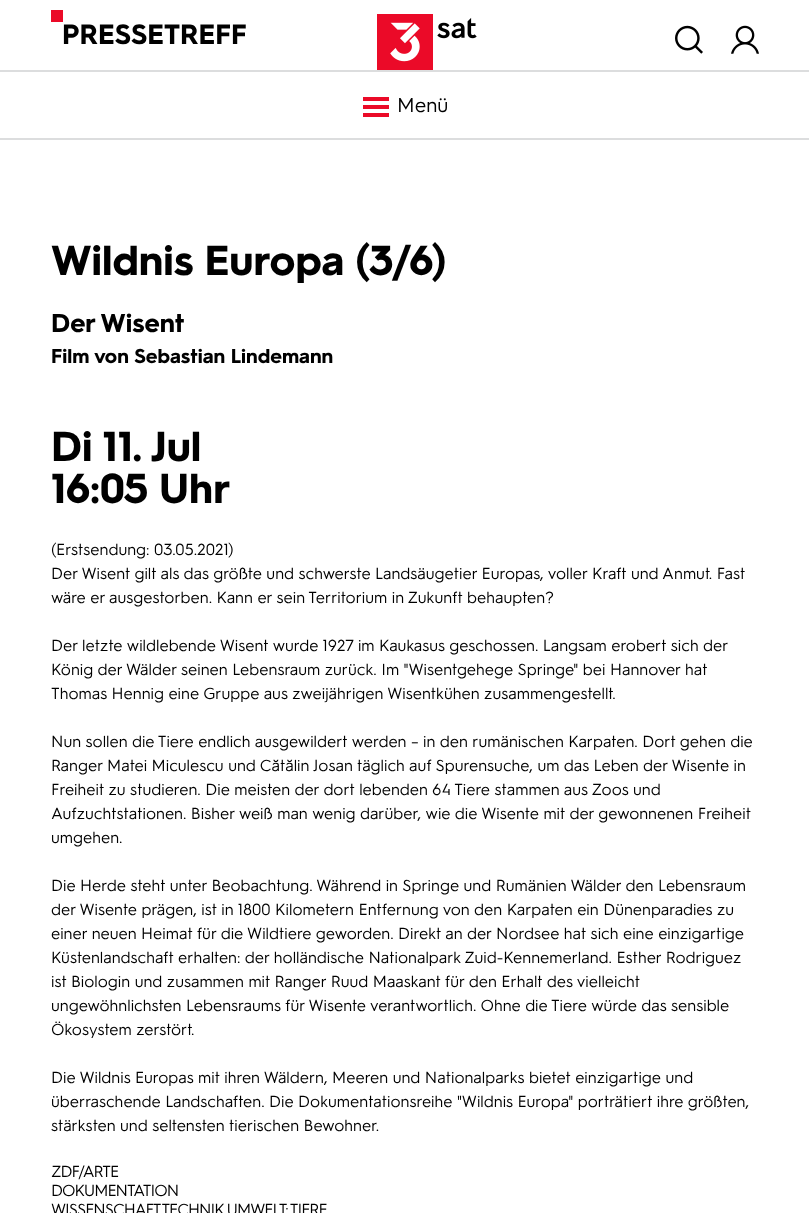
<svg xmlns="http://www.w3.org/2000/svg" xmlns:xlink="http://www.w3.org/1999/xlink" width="809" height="1213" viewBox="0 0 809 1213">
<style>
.cls-1{font:bold 28px '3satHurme';fill:#000000}
.cls-2{font:20px '3satHurme';fill:#000000}
.cls-3{font:bold 42px '3satHurme';fill:#000000}
.cls-4{font:bold 26px '3satHurme';fill:#000000}
.cls-5{font:bold 20px '3satHurme';fill:#000000}
.cls-6{font:16px '3satHurme';fill:#000000}
.cls-7{font:16px '3satHurme';letter-spacing:-1px;fill:#000000}
</style>
<rect width="100%" height="100%" fill="#ffffff"/>
<rect fill="#dcddde" x="0" y="70" width="809" height="2"/>
<rect fill="#eb0a28" x="51" y="10" width="12" height="12"/>
<image xlink:href="image0.png" x="377" y="14" width="100" height="56"/>
<image xlink:href="image1.png" x="675" y="25" width="28" height="29"/>
<image xlink:href="image2.png" x="731" y="25" width="28" height="29"/>
<rect fill="#dcddde" x="0" y="138" width="809" height="2"/>
<path fill="none" stroke="#eb0a28" stroke-width="4" stroke-linecap="square" d="M365 99H387M365 107H387M365 115H387"/>
<text class="cls-1" x="62" y="44">PRESSETREFF</text>
<text class="cls-2" x="397" y="112">Menü</text>
<text class="cls-3" x="51" y="275">Wildnis Europa (3/6)</text>
<text class="cls-4" x="51" y="332">Der Wisent</text>
<text class="cls-5" x="51" y="363">Film von Sebastian Lindemann</text>
<text class="cls-3"><tspan x="51" y="461">Di 11. Jul</tspan><tspan x="51" y="503">16:05 Uhr</tspan></text>
<text class="cls-6"><tspan x="51" y="555">(Erstsendung: 03.05.2021)</tspan><tspan x="51" y="579">Der Wisent gilt als das größte und schwerste Landsäugetier Europas, voller Kraft und Anmut. Fast</tspan><tspan x="51" y="603">wäre er ausgestorben. Kann er sein Territorium in Zukunft behaupten?</tspan></text>
<text class="cls-6"><tspan x="51" y="651">Der letzte wildlebende Wisent wurde 1927 im Kaukasus geschossen. Langsam erobert sich der</tspan><tspan x="51" y="675">König der Wälder seinen Lebensraum zurück. Im "Wisentgehege Springe" bei Hannover hat</tspan><tspan x="51" y="699">Thomas Hennig eine Gruppe aus zweijährigen Wisentkühen zusammengestellt.</tspan></text>
<text class="cls-6"><tspan x="51" y="747">Nun sollen die Tiere endlich ausgewildert werden – in den rumänischen Karpaten. Dort gehen die</tspan><tspan x="51" y="771">Ranger Matei Miculescu und Cătălin Josan täglich auf Spurensuche, um das Leben der Wisente in</tspan><tspan x="51" y="795">Freiheit zu studieren. Die meisten der dort lebenden 64 Tiere stammen aus Zoos und</tspan><tspan x="51" y="819">Aufzuchtstationen. Bisher weiß man wenig darüber, wie die Wisente mit der gewonnenen Freiheit</tspan><tspan x="51" y="843">umgehen.</tspan></text>
<text class="cls-6"><tspan x="51" y="891">Die Herde steht unter Beobachtung. Während in Springe und Rumänien Wälder den Lebensraum</tspan><tspan x="51" y="915">der Wisente prägen, ist in 1800 Kilometern Entfernung von den Karpaten ein Dünenparadies zu</tspan><tspan x="51" y="939">einer neuen Heimat für die Wildtiere geworden. Direkt an der Nordsee hat sich eine einzigartige</tspan><tspan x="51" y="963">Küstenlandschaft erhalten: der holländische Nationalpark Zuid-Kennemerland. Esther Rodriguez</tspan><tspan x="51" y="987">ist Biologin und zusammen mit Ranger Ruud Maaskant für den Erhalt des vielleicht</tspan><tspan x="51" y="1011">ungewöhnlichsten Lebensraums für Wisente verantwortlich. Ohne die Tiere würde das sensible</tspan><tspan x="51" y="1035">Ökosystem zerstört.</tspan></text>
<text class="cls-6"><tspan x="51" y="1083">Die Wildnis Europas mit ihren Wäldern, Meeren und Nationalparks bietet einzigartige und</tspan><tspan x="51" y="1107">überraschende Landschaften. Die Dokumentationsreihe "Wildnis Europa" porträtiert ihre größten,</tspan><tspan x="51" y="1131">stärksten und seltensten tierischen Bewohner.</tspan></text>
<text class="cls-7"><tspan x="51" y="1177">ZDF/ARTE</tspan><tspan x="51" y="1196">DOKUMENTATION</tspan><tspan x="51" y="1215">WISSENSCHAFT TECHNIK UMWELT: TIERE</tspan></text>
</svg>
